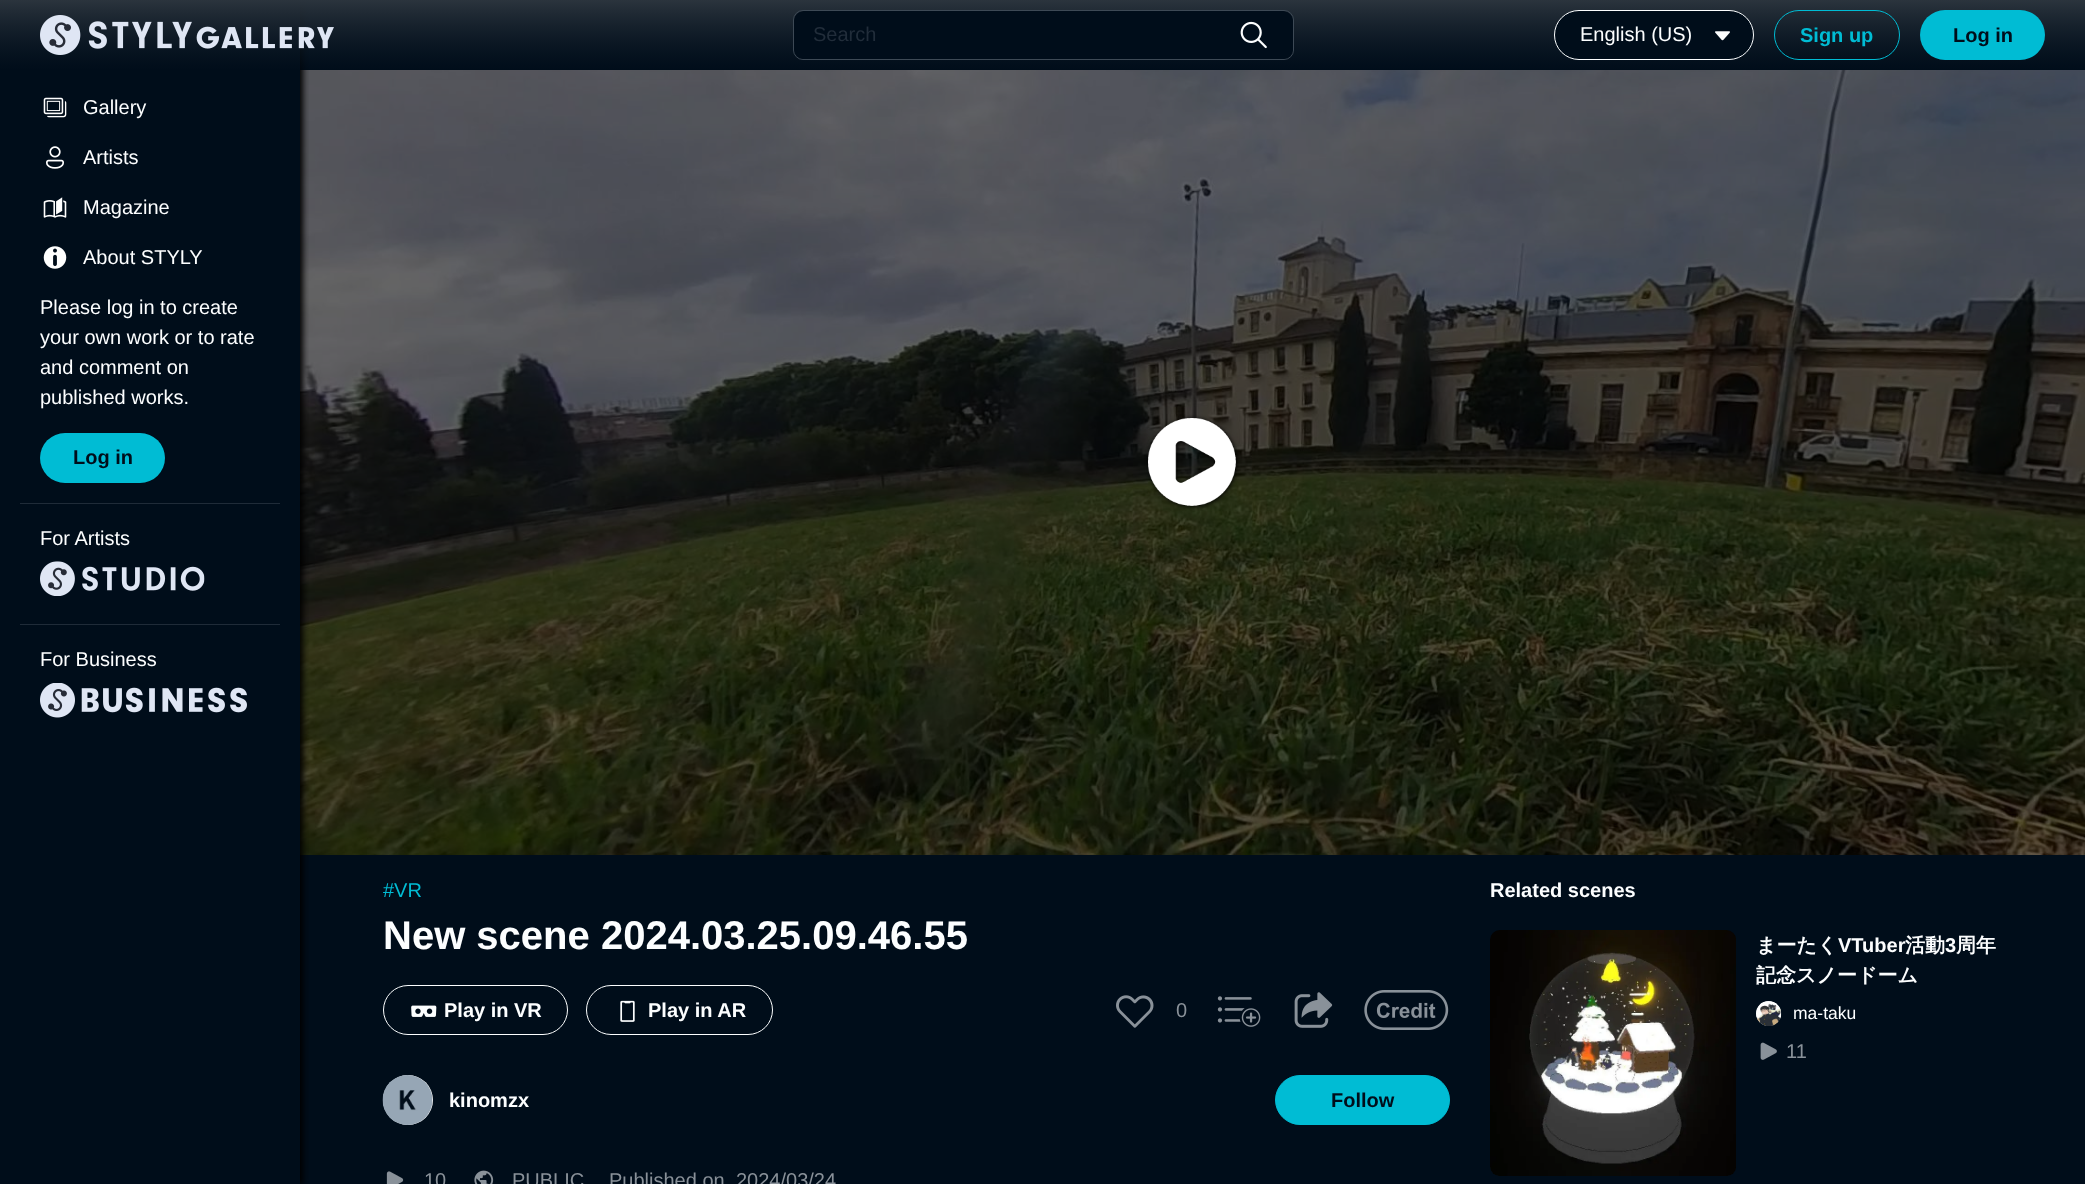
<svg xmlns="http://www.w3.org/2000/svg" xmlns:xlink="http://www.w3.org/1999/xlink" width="2085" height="1184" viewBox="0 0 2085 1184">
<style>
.cls-1{font:20px Liberation Sans;fill:#212d3a}
.cls-2{font:20px Liberation Sans;fill:#fcfeff}
.cls-3{font:bold 20px Liberation Sans;fill:#00bcd4}
.cls-4{font:bold 20px Liberation Sans;fill:#000d1a}
.cls-5{font:20px Liberation Sans;fill:#00bcd4}
.cls-6{font:bold 40px Liberation Sans;fill:#fcfeff}
.cls-7{font:bold 20px Liberation Sans;fill:#fcfeff}
.cls-8{font:20px Liberation Sans;fill:#899199}
.cls-9{font:bold 20px WenQuanYi Zen Hei;fill:#fcfeff}
.cls-10{font:17.5px Liberation Sans;fill:#fcfeff}
</style>
<defs>
<clipPath id="clip1"><rect x="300" y="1" width="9" height="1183"/></clipPath>
<linearGradient id="g1" gradientUnits="userSpaceOnUse" x1="1043" y1="0" x2="1043" y2="70"><stop offset="0" stop-color="#2b343d"/><stop offset="1" stop-color="#000d1a" stop-opacity="0.5"/></linearGradient>
<clipPath id="clip2"><rect x="794" y="11" width="499" height="48" rx="9"/></clipPath>
<linearGradient id="g2" gradientUnits="userSpaceOnUse" x1="1613" y1="1176" x2="1613" y2="930"><stop offset="0" stop-color="#0f1c29"/><stop offset="1" stop-color="#000d1a"/></linearGradient>
</defs>
<rect width="100%" height="100%" fill="#000d1a"/>
<image xlink:href="image9.png" x="300" y="70" width="1785" height="785"/>
<g clip-path="url(#clip1)">
<rect fill="#000000" filter="blur(3px)" x="3" y="0" width="300" height="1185"/>
</g>
<rect fill="url(#g1)" x="0" y="0" width="2085" height="70"/>
<image xlink:href="image0.png" x="40" y="15" width="294" height="40"/>
<rect fill="none" stroke="#3d4955" x="793.5" y="10.5" width="500" height="49" rx="9.5"/>
<g clip-path="url(#clip2)">
<path fill="#000d1a" d="M804 11H1215V59H804C798.5 59 794 54.5 794 49V21C794 15.5 798.5 11 804 11Z"/>
<path fill="#000d1a" d="M1215 11H1283C1288.5 11 1293 15.5 1293 21V49C1293 54.5 1288.5 59 1283 59H1215Z"/>
</g>
<image xlink:href="image1.png" x="1240" y="21" width="27" height="28"/>
<rect fill="#000d1a" stroke="#fcfeff" x="1554.5" y="10.5" width="199" height="49" rx="24.5"/>
<image xlink:href="image2.png" x="1715" y="31" width="15" height="10"/>
<rect fill="none" stroke="#00bcd4" x="1774.5" y="10.5" width="125" height="49" rx="24.5"/>
<rect fill="#00bcd4" x="1920" y="10" width="125" height="50" rx="25"/>
<image xlink:href="image3.png" x="43" y="97" width="24" height="21"/>
<image xlink:href="image4.png" x="46" y="146" width="18" height="23"/>
<image xlink:href="image5.png" x="43" y="197" width="24" height="21"/>
<image xlink:href="image6.png" x="43" y="246" width="24" height="23"/>
<rect fill="#00bcd4" x="40" y="433" width="125" height="50" rx="25"/>
<rect fill="#1f2b38" x="20" y="503" width="260" height="1"/>
<image xlink:href="image7.png" x="40" y="561" width="165" height="35"/>
<rect fill="#1f2b38" x="20" y="624" width="260" height="1"/>
<image xlink:href="image8.png" x="40" y="683" width="207" height="35"/>
<rect fill="none" stroke="#fcfeff" x="383.5" y="985.5" width="184" height="49" rx="24.5"/>
<image xlink:href="image10.png" x="411" y="1005" width="26" height="12"/>
<rect fill="none" stroke="#fcfeff" x="586.5" y="985.5" width="186" height="49" rx="24.5"/>
<image xlink:href="image11.png" x="620" y="1000" width="15" height="22"/>
<image xlink:href="image12.png" x="1116" y="995" width="38" height="33"/>
<image xlink:href="image13.png" x="1217" y="996" width="44" height="31"/>
<image xlink:href="image14.png" x="1294" y="992" width="39" height="36"/>
<image xlink:href="image15.png" x="1364" y="990" width="85" height="40"/>
<circle fill="#ffffff" cx="408" cy="1100" r="25"/>
<image xlink:href="image16.png" x="382" y="1075" width="51" height="50"/>
<rect fill="#00bcd4" stroke="#00bcd4" x="1275.5" y="1075.5" width="174" height="49" rx="24.5"/>
<image xlink:href="image17.png" x="386" y="1171" width="18" height="13"/>
<image xlink:href="image18.png" x="474" y="1170" width="20" height="14"/>
<rect fill="url(#g2)" x="1490" y="930" width="246" height="246" rx="10"/>
<image xlink:href="image19.png" x="1490" y="930" width="246" height="246"/>
<circle fill="#ffffff" cx="1768.5" cy="1013.5" r="12.5"/>
<image xlink:href="image20.png" x="1756" y="1001" width="26" height="25"/>
<image xlink:href="image21.png" x="1760" y="1042" width="17" height="18"/>
<text class="cls-1" x="813" y="41">Search</text>
<text class="cls-2" x="1580" y="41">English (US)</text>
<text class="cls-3" x="1800" y="42">Sign up</text>
<text class="cls-4" x="1953" y="42">Log in</text>
<text class="cls-2" x="83" y="114">Gallery</text>
<text class="cls-2" x="83" y="164">Artists</text>
<text class="cls-2" x="83" y="214">Magazine</text>
<text class="cls-2" x="83" y="264">About STYLY</text>
<text class="cls-2"><tspan x="40" y="314">Please log in to create</tspan><tspan x="40" y="344">your own work or to rate</tspan><tspan x="40" y="374">and comment on</tspan><tspan x="40" y="404">published works.</tspan></text>
<text class="cls-4" x="73" y="464">Log in</text>
<text class="cls-2" x="40" y="545">For Artists</text>
<text class="cls-2" x="40" y="666">For Business</text>
<text class="cls-5" x="383" y="897">#VR</text>
<text class="cls-6" x="383" y="949">New scene 2024.03.25.09.46.55</text>
<text class="cls-7" x="444" y="1017">Play in VR</text>
<text class="cls-7" x="648" y="1017">Play in AR</text>
<text class="cls-8" x="1176" y="1017">0</text>
<text class="cls-7" x="449" y="1107">kinomzx</text>
<text class="cls-4" x="1331" y="1107">Follow</text>
<text class="cls-8" x="424" y="1187">10</text>
<text class="cls-8" x="512" y="1187">PUBLIC</text>
<text class="cls-8" x="609" y="1187">Published on</text>
<text class="cls-8" x="736" y="1187">2024/03/24</text>
<text class="cls-7" x="1490" y="897">Related scenes</text>
<text class="cls-9" x="1756" y="952">まーたく</text>
<text class="cls-7" x="1838" y="952">VTuber</text>
<text class="cls-9" x="1905" y="952">活動</text>
<text class="cls-7" x="1945" y="952">3</text>
<text class="cls-9" x="1956" y="952">周年</text>
<text class="cls-9" x="1756" y="982">記念スノードーム</text>
<text class="cls-10" x="1793" y="1019">ma-taku</text>
<text class="cls-8" x="1786" y="1058">11</text>
</svg>
